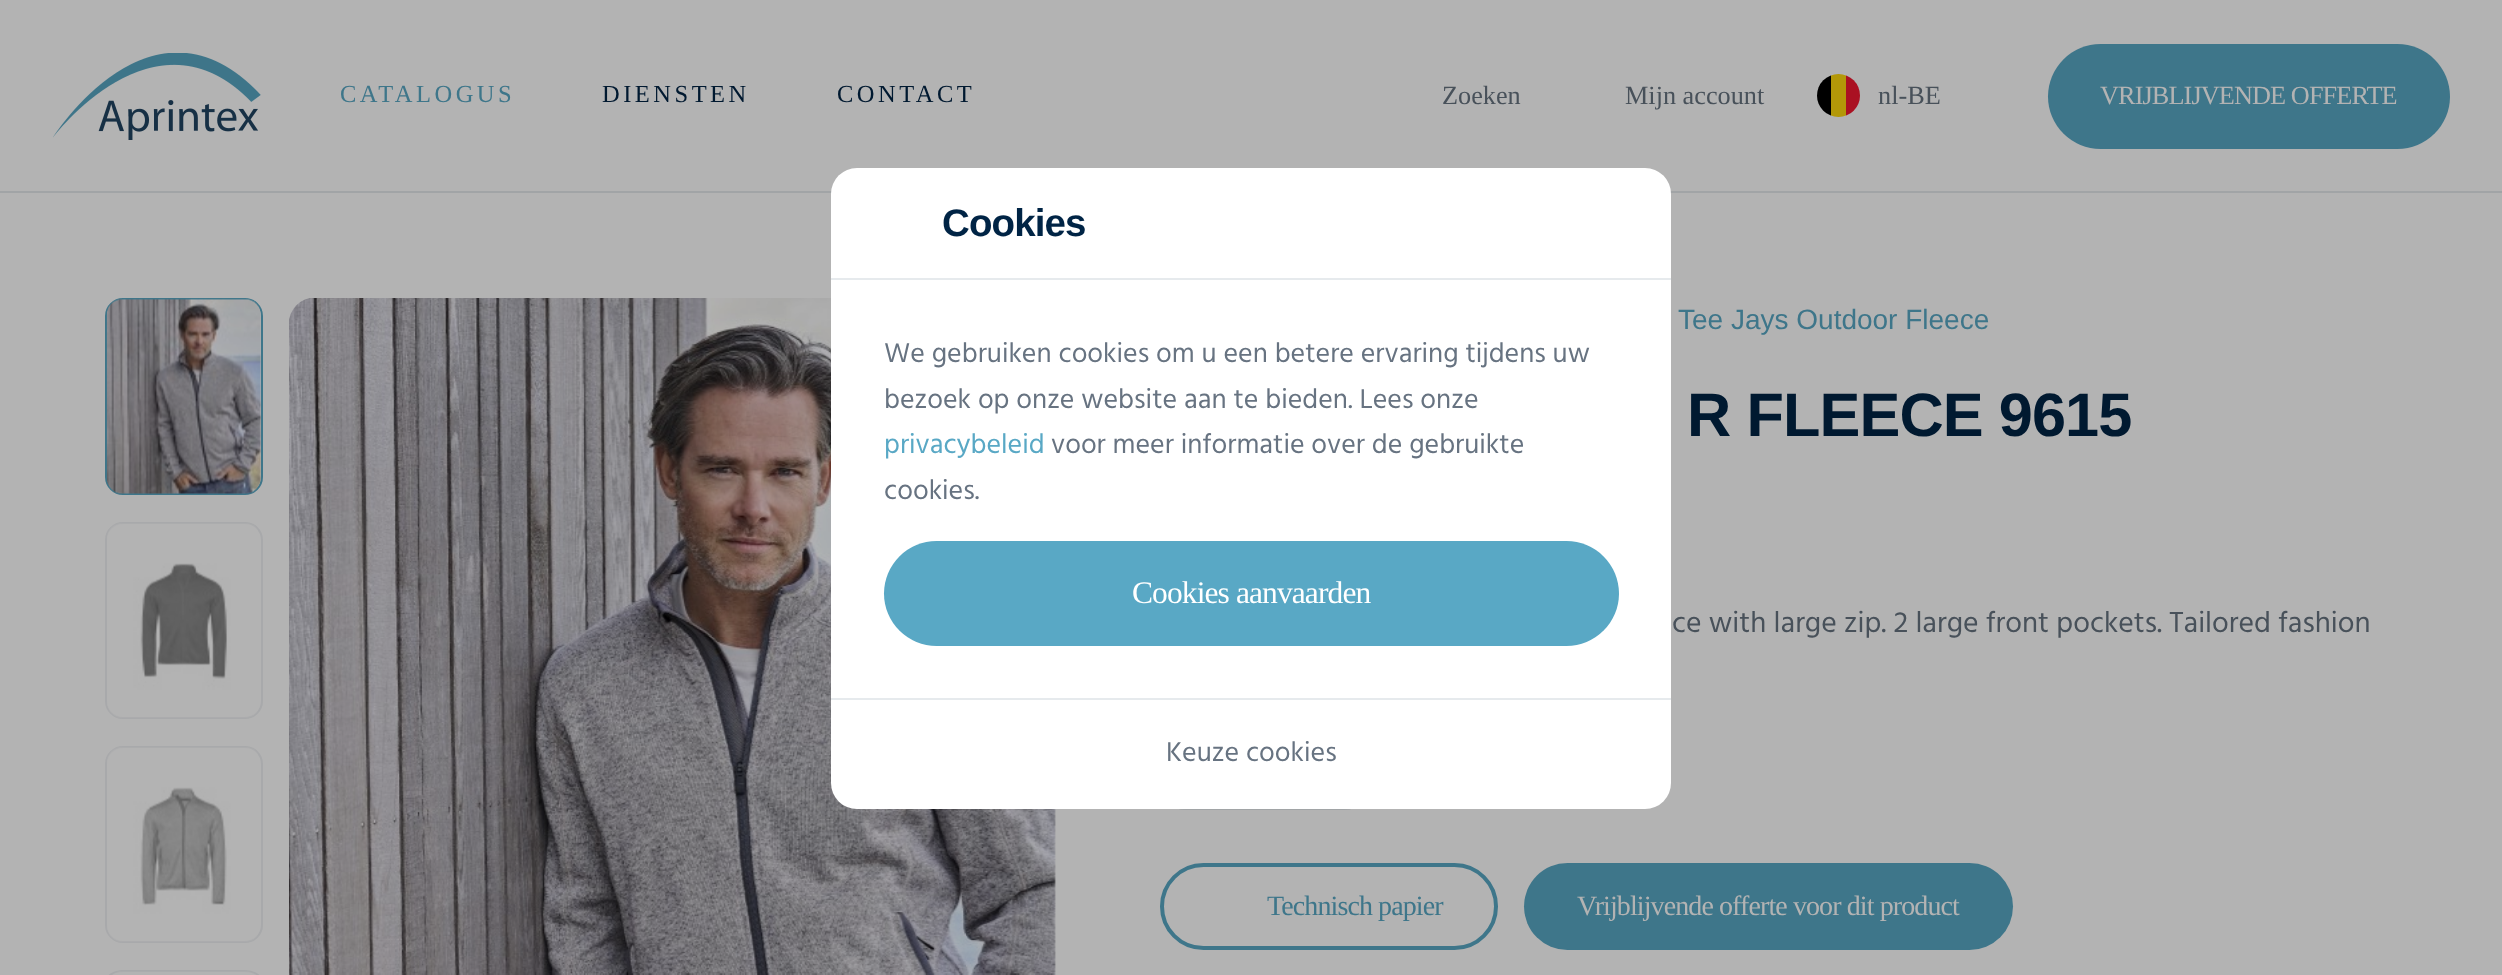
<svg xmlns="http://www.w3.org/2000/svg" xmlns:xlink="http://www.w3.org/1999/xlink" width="2502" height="975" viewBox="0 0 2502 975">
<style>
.cls-1{font:24.5px Liberation Serif;letter-spacing:3.5px;fill:#3e768a}
.cls-2{font:24.5px Liberation Serif;letter-spacing:3.5px;fill:#001930}
.cls-3{font:26.25px Liberation Serif;fill:#48515a}
.cls-4{font:26.25px Liberation Serif;letter-spacing:-0.9px;fill:#b3b3b3}
.cls-5{font:bold 38.5px Liberation Sans;letter-spacing:-0.9px;fill:#002445}
.cls-6{font:28px Hind;fill:#677381}
.cls-7{font:28px Hind;fill:#59a8c5}
.cls-8{font:31.5px Liberation Serif;letter-spacing:-0.9px;fill:#ffffff}
.cls-9{font:28px Liberation Sans;fill:#3e768a}
.cls-10{font:bold 61.25px Liberation Sans;letter-spacing:-0.9px;fill:#001930}
.cls-11{font:29.75px Hind;fill:#48515a}
.cls-12{font:28px Liberation Serif;letter-spacing:-0.9px;fill:#3e768a}
.cls-13{font:28px Liberation Serif;letter-spacing:-0.9px;fill:#b3b3b3}
</style>
<defs>
<clipPath id="clip1"><rect x="1817" y="74" width="43" height="43" rx="21.5"/></clipPath>
</defs>
<rect width="100%" height="100%" fill="#b3b3b3"/>
<rect fill="#a1a4a6" x="0" y="191" width="2502" height="2"/>
<image xlink:href="image0.png" x="53" y="53" width="208" height="87"/>
<g clip-path="url(#clip1)">
<rect fill="#000000" x="1817" y="75" width="14" height="41"/>
<rect fill="#b39808" x="1831" y="74" width="15" height="43"/>
<rect fill="#aa1122" x="1846" y="75" width="14" height="41"/>
</g>
<rect fill="#3e768a" x="2048" y="44" width="402" height="105" rx="52.5"/>
<image xlink:href="image5.png" x="289" y="298" width="767" height="677"/>
<rect fill="none" stroke="#a1a4a6" stroke-width="2" x="1161" y="601" width="208" height="208" rx="25"/>
<rect fill="#ffffff" x="831" y="168" width="840" height="641" rx="26"/>
<rect fill="#e6eaed" x="831" y="278" width="840" height="2"/>
<rect fill="#59a8c5" x="884" y="541" width="735" height="105" rx="52.5"/>
<rect fill="#e6eaed" x="831" y="698" width="840" height="2"/>
<rect fill="none" stroke="#3e768a" stroke-width="2" x="106" y="299" width="156" height="195" rx="17"/>
<image xlink:href="image1.png" x="106" y="298" width="155" height="196"/>
<rect fill="none" stroke="#a8a9ab" stroke-width="2" x="106" y="523" width="156" height="195" rx="17"/>
<image xlink:href="image2.png" x="107" y="523" width="151" height="195"/>
<rect fill="none" stroke="#a8a9ab" stroke-width="2" x="106" y="747" width="156" height="195" rx="17"/>
<image xlink:href="image3.png" x="107" y="747" width="151" height="195"/>
<rect fill="none" stroke="#a8a9ab" stroke-width="2" x="106" y="971" width="156" height="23" rx="17"/>
<image xlink:href="image4.png" x="113" y="971" width="142" height="4"/>
<rect fill="none" stroke="#3e768a" stroke-width="4" x="1162" y="865" width="334" height="83" rx="41.5"/>
<rect fill="#3e768a" x="1524" y="863" width="489" height="87" rx="43.5"/>
<text class="cls-1" x="340" y="102">CATALOGUS</text>
<text class="cls-2" x="602" y="102">DIENSTEN</text>
<text class="cls-2" x="837" y="102">CONTACT</text>
<text class="cls-3" x="1442" y="104">Zoeken</text>
<text class="cls-3" x="1625" y="104">Mijn account</text>
<text class="cls-3" x="1878" y="104">nl-BE</text>
<text class="cls-4" x="2100" y="104">VRIJBLIJVENDE OFFERTE</text>
<text class="cls-5" x="942" y="236">Cookies</text>
<text class="cls-6"><tspan x="884" y="362">We gebruiken cookies om u een betere ervaring tijdens uw</tspan><tspan x="884" y="408">bezoek op onze website aan te bieden. Lees onze</tspan></text>
<text class="cls-7" x="884" y="453">privacybeleid</text>
<text class="cls-6" x="1051" y="453">voor meer informatie over de gebruikte</text>
<text class="cls-6" x="884" y="499">cookies.</text>
<text class="cls-8" x="1132" y="603">Cookies aanvaarden</text>
<text class="cls-6" x="1166" y="761">Keuze cookies</text>
<text class="cls-9" x="1678" y="329">Tee Jays Outdoor Fleece</text>
<text class="cls-10" x="1687" y="436">R FLEECE 9615</text>
<text class="cls-11" x="1672" y="632">ce with large zip. 2 large front pockets. Tailored fashion</text>
<text class="cls-12" x="1267" y="915">Technisch papier</text>
<text class="cls-13" x="1577" y="915">Vrijblijvende offerte voor dit product</text>
</svg>
